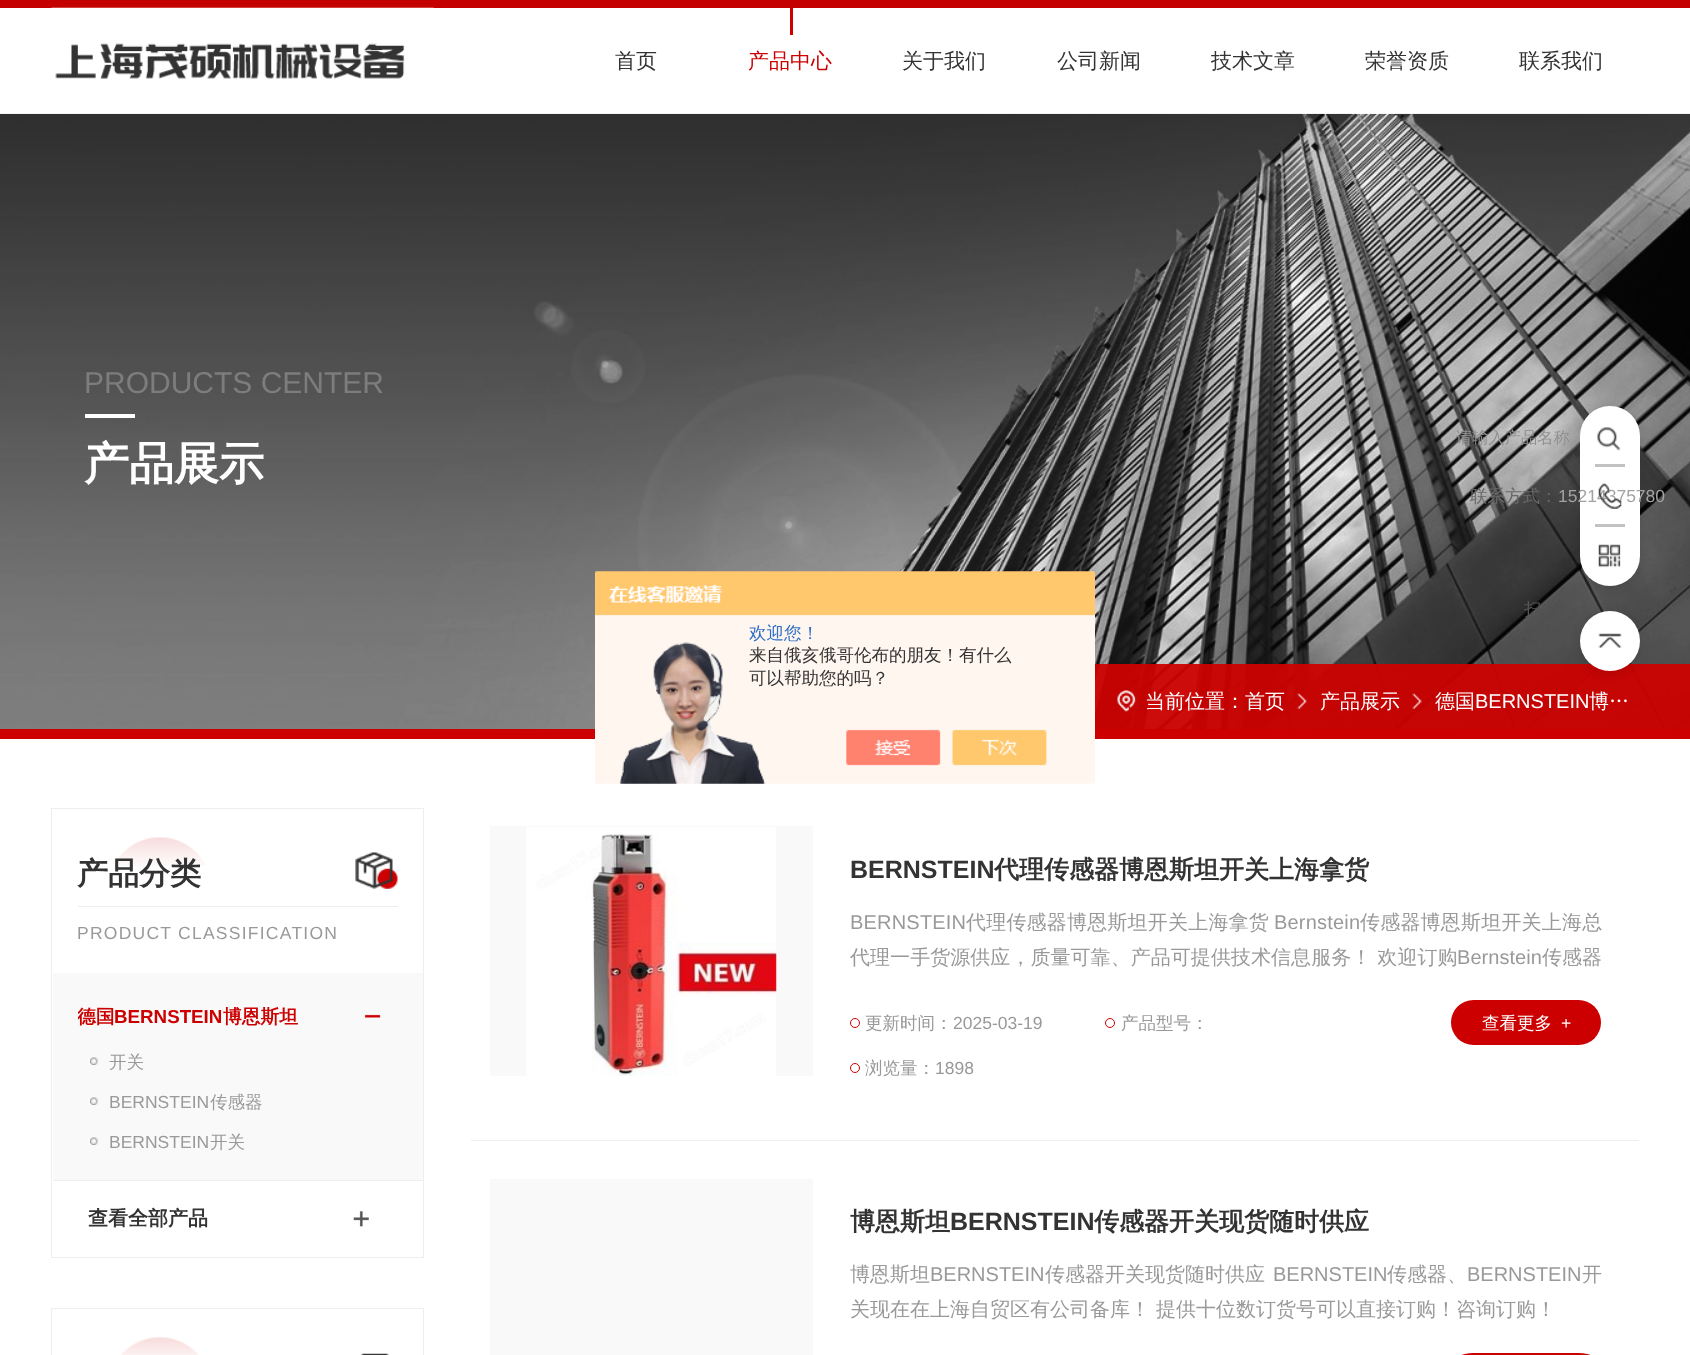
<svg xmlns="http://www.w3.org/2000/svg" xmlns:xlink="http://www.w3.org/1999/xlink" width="1690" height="1355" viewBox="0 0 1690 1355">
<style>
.cls-1{font:500 21px WenQuanYi Zen Hei;fill:#333333}
.cls-2{font:500 21px WenQuanYi Zen Hei;fill:#cc0001}
.cls-3{font:30px Liberation Sans;fill:#7d7d7d}
.cls-4{font:bold 45px WenQuanYi Zen Hei;fill:#ffffff}
.cls-5{font:500 20px WenQuanYi Zen Hei;fill:#ffffff}
.cls-6{font:20px Liberation Sans;fill:#ffffff}
.cls-7{font:500 16.25px WenQuanYi Zen Hei;fill:#919191}
.cls-8{font:500 17.5px WenQuanYi Zen Hei;fill:#686868}
.cls-9{font:17.5px Liberation Sans;fill:#a2a2a2}
.cls-10{font:500 17.5px WenQuanYi Zen Hei;fill:#555555}
.cls-11{font:500 17.5px WenQuanYi Zen Hei;fill:#2e6ec6}
.cls-12{font:500 17.5px WenQuanYi Zen Hei;fill:#333333}
.cls-13{font:bold 31px WenQuanYi Zen Hei;fill:#333333}
.cls-14{font:17.5px Liberation Sans;letter-spacing:1.25px;fill:#999999}
.cls-15{font:bold 18.75px WenQuanYi Zen Hei;fill:#cc0001}
.cls-16{font:bold 18.75px Liberation Sans;fill:#cc0001}
.cls-17{font:500 17.5px WenQuanYi Zen Hei;fill:#999999}
.cls-18{font:17.5px Liberation Sans;fill:#999999}
.cls-19{font:bold 20px WenQuanYi Zen Hei;fill:#333333}
.cls-20{font:bold 25px Liberation Sans;fill:#333333}
.cls-21{font:bold 25px WenQuanYi Zen Hei;fill:#333333}
.cls-22{font:20px Liberation Sans;letter-spacing:0.2px;fill:#999999}
.cls-23{font:500 20px WenQuanYi Zen Hei;letter-spacing:0.2px;fill:#999999}
.cls-24{font:500 20px WenQuanYi Zen Hei;letter-spacing:0.05px;fill:#999999}
.cls-25{font:20px Liberation Sans;letter-spacing:0.05px;fill:#999999}
.cls-26{font:500 17.5px WenQuanYi Zen Hei;fill:#ffffff}
.cls-27{font:17.5px Liberation Sans;fill:#ffffff}
.cls-28{font:500 20px WenQuanYi Zen Hei;fill:#999999}
.cls-29{font:20px Liberation Sans;fill:#999999}
</style>
<defs>
<clipPath id="clip1"><rect x="78" y="991" width="270" height="50"/></clipPath>
</defs>
<rect width="100%" height="100%" fill="#ffffff"/>
<rect fill="#c50000" x="0" y="0" width="1690" height="8"/>
<image xlink:href="image0.png" x="51" y="7" width="383" height="72"/>
<rect fill="#cc0001" x="790" y="8" width="3" height="27"/>
<image xlink:href="image1.png" x="0" y="113" width="1690" height="616"/>
<rect fill="#ffffff" x="85" y="414" width="50" height="4"/>
<path fill="#cc0101" fill-opacity="0.95" d="M1066 664H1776L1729 739H1019Z"/>
<rect fill="#cc0001" x="0" y="729" width="1690" height="10"/>
<image xlink:href="image2.png" x="1117" y="690" width="19" height="22"/>
<image xlink:href="image3.png" x="1297" y="693" width="10" height="16"/>
<image xlink:href="image4.png" x="1412" y="693" width="10" height="16"/>
<rect fill="#000000" fill-opacity="0.1" filter="blur(5px)" x="1579" y="406" width="62" height="183" rx="31"/>
<rect fill="#ffffff" x="1580" y="406" width="60" height="180" rx="30"/>
<image xlink:href="image5.png" x="1597" y="427" width="24" height="24"/>
<rect fill="#c2c2c2" x="1595" y="464" width="30" height="3"/>
<rect fill="#c2c2c2" x="1595" y="524" width="30" height="3"/>
<image xlink:href="image7.png" x="1598" y="544" width="23" height="24"/>
<rect fill="#000000" fill-opacity="0.1" filter="blur(5px)" x="1579" y="611" width="62" height="63" rx="31"/>
<circle fill="#ffffff" cx="1610" cy="641" r="30"/>
<image xlink:href="image8.png" x="1598" y="633" width="24" height="15"/>
<image xlink:href="image9.png" x="595" y="571" width="500" height="213"/>
<rect fill="none" stroke="#eeeeee" x="51.5" y="808.5" width="372" height="449"/>
<image xlink:href="image10.png" x="115" y="837" width="90" height="29"/>
<rect fill="#eeeeee" x="78" y="906" width="320" height="1"/>
<image xlink:href="image11.png" x="355" y="852" width="43" height="37"/>
<rect fill="#f9f9f9" x="53" y="973" width="370" height="207"/>
<rect fill="#eeeeee" x="53" y="1180" width="370" height="1"/>
<image xlink:href="image12.png" x="364" y="1014" width="17" height="4"/>
<image xlink:href="image13.png" x="90" y="1057" width="8" height="8"/>
<image xlink:href="image13.png" x="90" y="1097" width="8" height="8"/>
<image xlink:href="image13.png" x="90" y="1137" width="8" height="8"/>
<image xlink:href="image14.png" x="353" y="1211" width="16" height="16"/>
<rect fill="none" stroke="#eeeeee" x="51.5" y="1308.5" width="372" height="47"/>
<image xlink:href="image15.png" x="121" y="1337" width="78" height="18"/>
<image xlink:href="image16.png" x="361" y="1353" width="28" height="2"/>
<rect fill="#eeeeee" x="471" y="1140" width="1168" height="1"/>
<rect fill="#f9f9f9" x="490" y="826" width="323" height="250"/>
<image xlink:href="image17.png" x="526" y="827" width="251" height="249"/>
<circle fill="none" stroke="#cc0001" cx="855" cy="1023" r="4.5"/>
<circle fill="none" stroke="#cc0001" cx="1110" cy="1023" r="4.5"/>
<circle fill="none" stroke="#cc0001" cx="855" cy="1068" r="4.5"/>
<rect fill="#cc0001" x="1451" y="1000" width="150" height="45" rx="22.5"/>
<rect fill="#f9f9f9" x="490" y="1179" width="323" height="176"/>
<rect fill="#cc0001" x="1451" y="1353" width="150" height="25" rx="22.5"/>
<text class="cls-1" x="615" y="68">首页</text>
<text class="cls-2" x="748" y="68">产品中心</text>
<text class="cls-1" x="902" y="68">关于我们</text>
<text class="cls-1" x="1057" y="68">公司新闻</text>
<text class="cls-1" x="1211" y="68">技术文章</text>
<text class="cls-1" x="1365" y="68">荣誉资质</text>
<text class="cls-1" x="1519" y="68">联系我们</text>
<text class="cls-3" x="84" y="393">PRODUCTS CENTER</text>
<text class="cls-4" x="84" y="479">产品展示</text>
<text class="cls-5" x="1145" y="708">当前位置：首页</text>
<text class="cls-5" x="1320" y="708">产品展示</text>
<text class="cls-5" x="1435" y="708">德国</text>
<text class="cls-6" x="1475" y="708">BERNSTEIN</text>
<text class="cls-5" x="1589" y="708">博…</text>
<text class="cls-7" x="1456" y="443">请输入产品名称</text>
<text class="cls-8" x="1470" y="502">联系方式：</text>
<text class="cls-9" x="1558" y="502">15214375780</text>
<image xlink:href="image6.png" x="1598" y="483" width="24" height="26"/>
<text class="cls-10" x="1524" y="615">扫</text>
<text class="cls-11" x="749" y="639">欢迎您！</text>
<text class="cls-12"><tspan x="749" y="661">来自俄亥俄哥伦布的朋友！有什么</tspan><tspan x="749" y="684">可以帮助您的吗？</tspan></text>
<text class="cls-13" x="77" y="884">产品分类</text>
<text class="cls-14" x="77" y="939">PRODUCT CLASSIFICATION</text>
<g clip-path="url(#clip1)">
<text class="cls-15" x="77" y="1023">德国</text>
</g>
<text class="cls-16" x="114" y="1023">BERNSTEIN</text>
<text class="cls-15" x="223" y="1023">博恩斯坦</text>
<text class="cls-17" x="109" y="1068">开关</text>
<text class="cls-18" x="109" y="1108">BERNSTEIN</text>
<text class="cls-17" x="210" y="1108">传感器</text>
<text class="cls-18" x="109" y="1148">BERNSTEIN</text>
<text class="cls-17" x="210" y="1148">开关</text>
<text class="cls-19" x="88" y="1225">查看全部产品</text>
<text class="cls-20" x="850" y="878">BERNSTEIN</text>
<text class="cls-21" x="994" y="878">代理传感器博恩斯坦开关上海拿货</text>
<text class="cls-22" x="850" y="929">BERNSTEIN</text>
<text class="cls-23" x="966" y="929">代理传感器博恩斯坦开关上海拿货</text>
<text class="cls-22" x="1274" y="929">Bernstein</text>
<text class="cls-23" x="1360" y="929">传感器博恩斯坦开关上海总</text>
<text class="cls-24" x="850" y="964">代理一手货源供应，质量可靠、产品可提供技术信息服务！ 欢迎订购</text>
<text class="cls-25" x="1457" y="964">Bernstein</text>
<text class="cls-24" x="1542" y="964">传感器</text>
<text class="cls-17" x="865" y="1029">更新时间：</text>
<text class="cls-18" x="953" y="1029">2025-03-19</text>
<text class="cls-17" x="1121" y="1029">产品型号：</text>
<text class="cls-17" x="865" y="1074">浏览量：</text>
<text class="cls-18" x="935" y="1074">1898</text>
<text class="cls-26" x="1482" y="1029">查看更多</text>
<text class="cls-27" x="1561" y="1029">+</text>
<text class="cls-21" x="850" y="1230">博恩斯坦</text>
<text class="cls-20" x="950" y="1230">BERNSTEIN</text>
<text class="cls-21" x="1094" y="1230">传感器开关现货随时供应</text>
<text class="cls-28" x="850" y="1281">博恩斯坦</text>
<text class="cls-29" x="930" y="1281">BERNSTEIN</text>
<text class="cls-28" x="1045" y="1281">传感器开关现货随时供应</text>
<text class="cls-29" x="1273" y="1281">BERNSTEIN</text>
<text class="cls-28" x="1387" y="1281">传感器、</text>
<text class="cls-29" x="1467" y="1281">BERNSTEIN</text>
<text class="cls-28" x="1582" y="1281">开</text>
<text class="cls-28" x="850" y="1316">关现在在上海自贸区有公司备库！ 提供十位数订货号可以直接订购！咨询订购！</text>
</svg>
